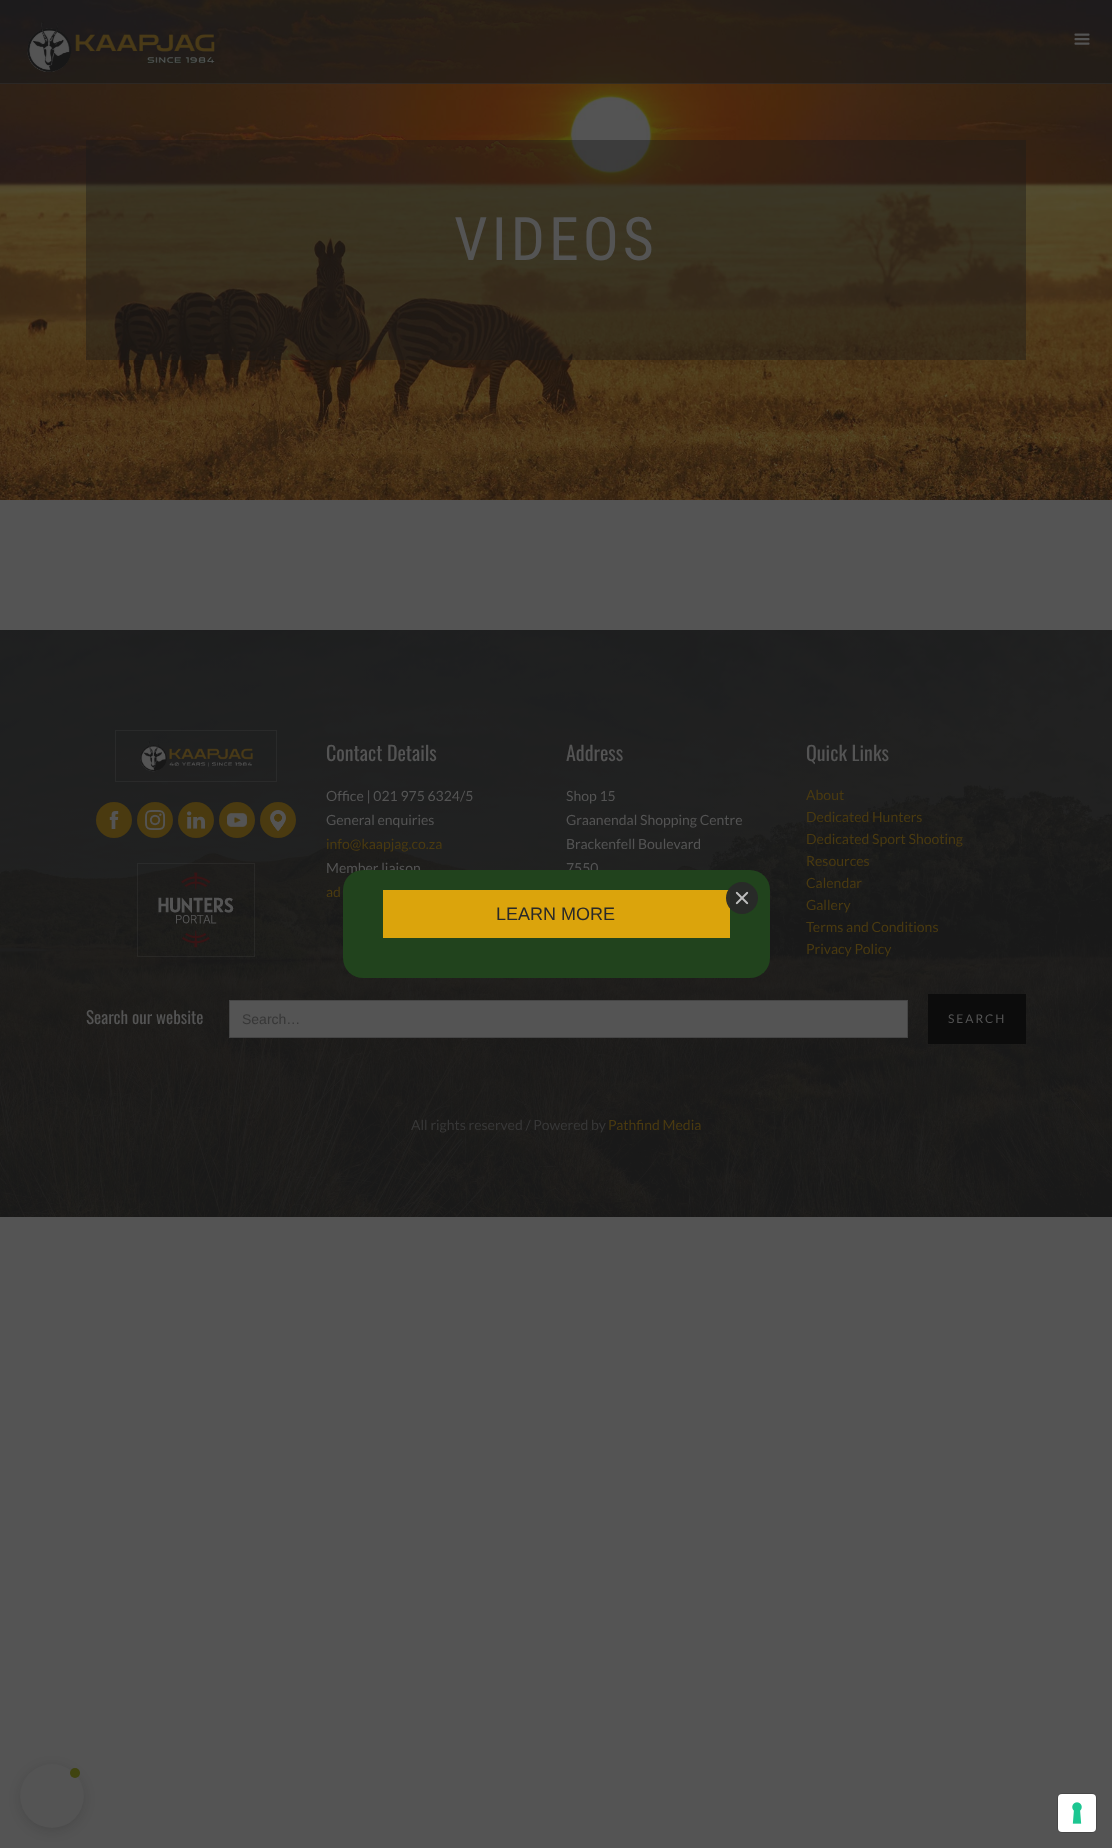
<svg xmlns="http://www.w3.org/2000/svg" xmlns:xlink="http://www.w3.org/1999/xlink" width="1112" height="1848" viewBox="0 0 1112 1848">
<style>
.cls-1{font:60px Roboto Condensed;letter-spacing:4px;fill:#545454}
.cls-2{font:20px Oswald;fill:#545454}
.cls-3{font:14px Lato;fill:#545454}
.cls-4{font:14px Lato;fill:#4a3a10}
.cls-5{font:17px Oswald;fill:#545454}
.cls-6{font:14px Liberation Sans;fill:#373737}
.cls-7{font:12px Lato;letter-spacing:2px;fill:#545454}
.cls-8{font:14px Lato;fill:#373737}
.cls-9{font:18px Liberation Sans;fill:#292929}
</style>
<rect width="100%" height="100%" fill="#545454"/>
<image xlink:href="image2.png" x="0" y="0" width="1112" height="500"/>
<rect fill="#1b1b1b" fill-opacity="0.67" x="0" y="0" width="1112" height="84"/>
<rect fill="#545454" fill-opacity="0.2" x="0" y="83" width="1112" height="1"/>
<image xlink:href="image0.png" x="27" y="22" width="188" height="50"/>
<image xlink:href="image1.png" x="1074" y="33" width="16" height="12"/>
<rect fill="#1b1b1b" fill-opacity="0.41" x="86" y="140" width="940" height="220"/>
<image xlink:href="image3.png" x="0" y="630" width="1112" height="587"/>
<rect fill="none" stroke="#545454" stroke-opacity="0.2" x="115.5" y="730.5" width="161" height="51"/>
<image xlink:href="image4.png" x="140" y="741" width="113" height="31"/>
<circle fill="#4a3a10" cx="114" cy="820" r="18"/>
<image xlink:href="image5.png" x="109" y="811" width="10" height="18"/>
<circle fill="#4a3a10" cx="155" cy="820" r="18"/>
<image xlink:href="image6.png" x="145" y="810" width="20" height="20"/>
<circle fill="#4a3a10" cx="196" cy="820" r="18"/>
<image xlink:href="image7.png" x="187" y="811" width="18" height="18"/>
<circle fill="#4a3a10" cx="237" cy="820" r="18"/>
<image xlink:href="image8.png" x="227" y="813" width="20" height="14"/>
<circle fill="#4a3a10" cx="278" cy="820" r="18"/>
<image xlink:href="image9.png" x="270" y="810" width="16" height="21"/>
<rect fill="none" stroke="#545454" stroke-opacity="0.2" x="137.5" y="863.5" width="117" height="93"/>
<image xlink:href="image10.png" x="158" y="872" width="76" height="76"/>
<rect fill="#545454" stroke="#454545" x="229.5" y="1000.5" width="678" height="37"/>
<rect fill="#0c0c0c" x="928" y="994" width="98" height="50"/>
<rect fill="#0c0c0c" fill-opacity="0.15" filter="blur(6px)" x="20" y="1767" width="64" height="64" rx="32"/>
<circle fill="#545454" cx="52" cy="1796" r="32"/>
<circle fill="#404410" cx="75" cy="1773" r="5"/>
<rect fill="none" stroke="#474747" x="1057.5" y="1793.5" width="39" height="39" rx="4.5"/>
<rect fill="#ffffff" x="1058" y="1794" width="38" height="38" rx="4"/>
<image xlink:href="image12.png" x="1072" y="1802" width="10" height="22"/>
<text class="cls-1" x="454" y="260">VIDEOS</text>
<text class="cls-2" x="326" y="761">Contact Details</text>
<text class="cls-3"><tspan x="326" y="801">Office | 021 975 6324/5</tspan><tspan x="326" y="825">General enquiries</tspan></text>
<text class="cls-4" x="326" y="849">info@kaapjag.co.za</text>
<text class="cls-3" x="326" y="873">Member liaison</text>
<text class="cls-4" x="326" y="897">ad</text>
<text class="cls-2" x="566" y="761">Address</text>
<text class="cls-3"><tspan x="566" y="801">Shop 15</tspan><tspan x="566" y="825">Graanendal Shopping Centre</tspan><tspan x="566" y="849">Brackenfell Boulevard</tspan><tspan x="566" y="873">7550</tspan></text>
<text class="cls-2" x="806" y="761">Quick Links</text>
<text class="cls-4"><tspan x="806" y="800">About</tspan><tspan x="806" y="822">Dedicated Hunters</tspan><tspan x="806" y="844">Dedicated Sport Shooting</tspan><tspan x="806" y="866">Resources</tspan><tspan x="806" y="888">Calendar</tspan><tspan x="806" y="910">Gallery</tspan><tspan x="806" y="932">Terms and Conditions</tspan><tspan x="806" y="954">Privacy Policy</tspan></text>
<text class="cls-5" x="86" y="1024">Search our website</text>
<text class="cls-6" x="242" y="1024">Search…</text>
<text class="cls-7" x="948" y="1023">SEARCH</text>
<text class="cls-8" x="411" y="1130">All rights reserved / Powered by</text>
<text class="cls-4" x="608" y="1130">Pathfind Media</text>
<rect fill="#21431d" x="343" y="870" width="427" height="108" rx="20"/>
<rect fill="#dba40c" x="383" y="890" width="347" height="48"/>
<text class="cls-9" x="496" y="920">LEARN MORE</text>
<circle fill="#292929" fill-opacity="0.95" cx="742" cy="898" r="16"/>
<image xlink:href="image11.png" x="735" y="891" width="14" height="14"/>
</svg>
